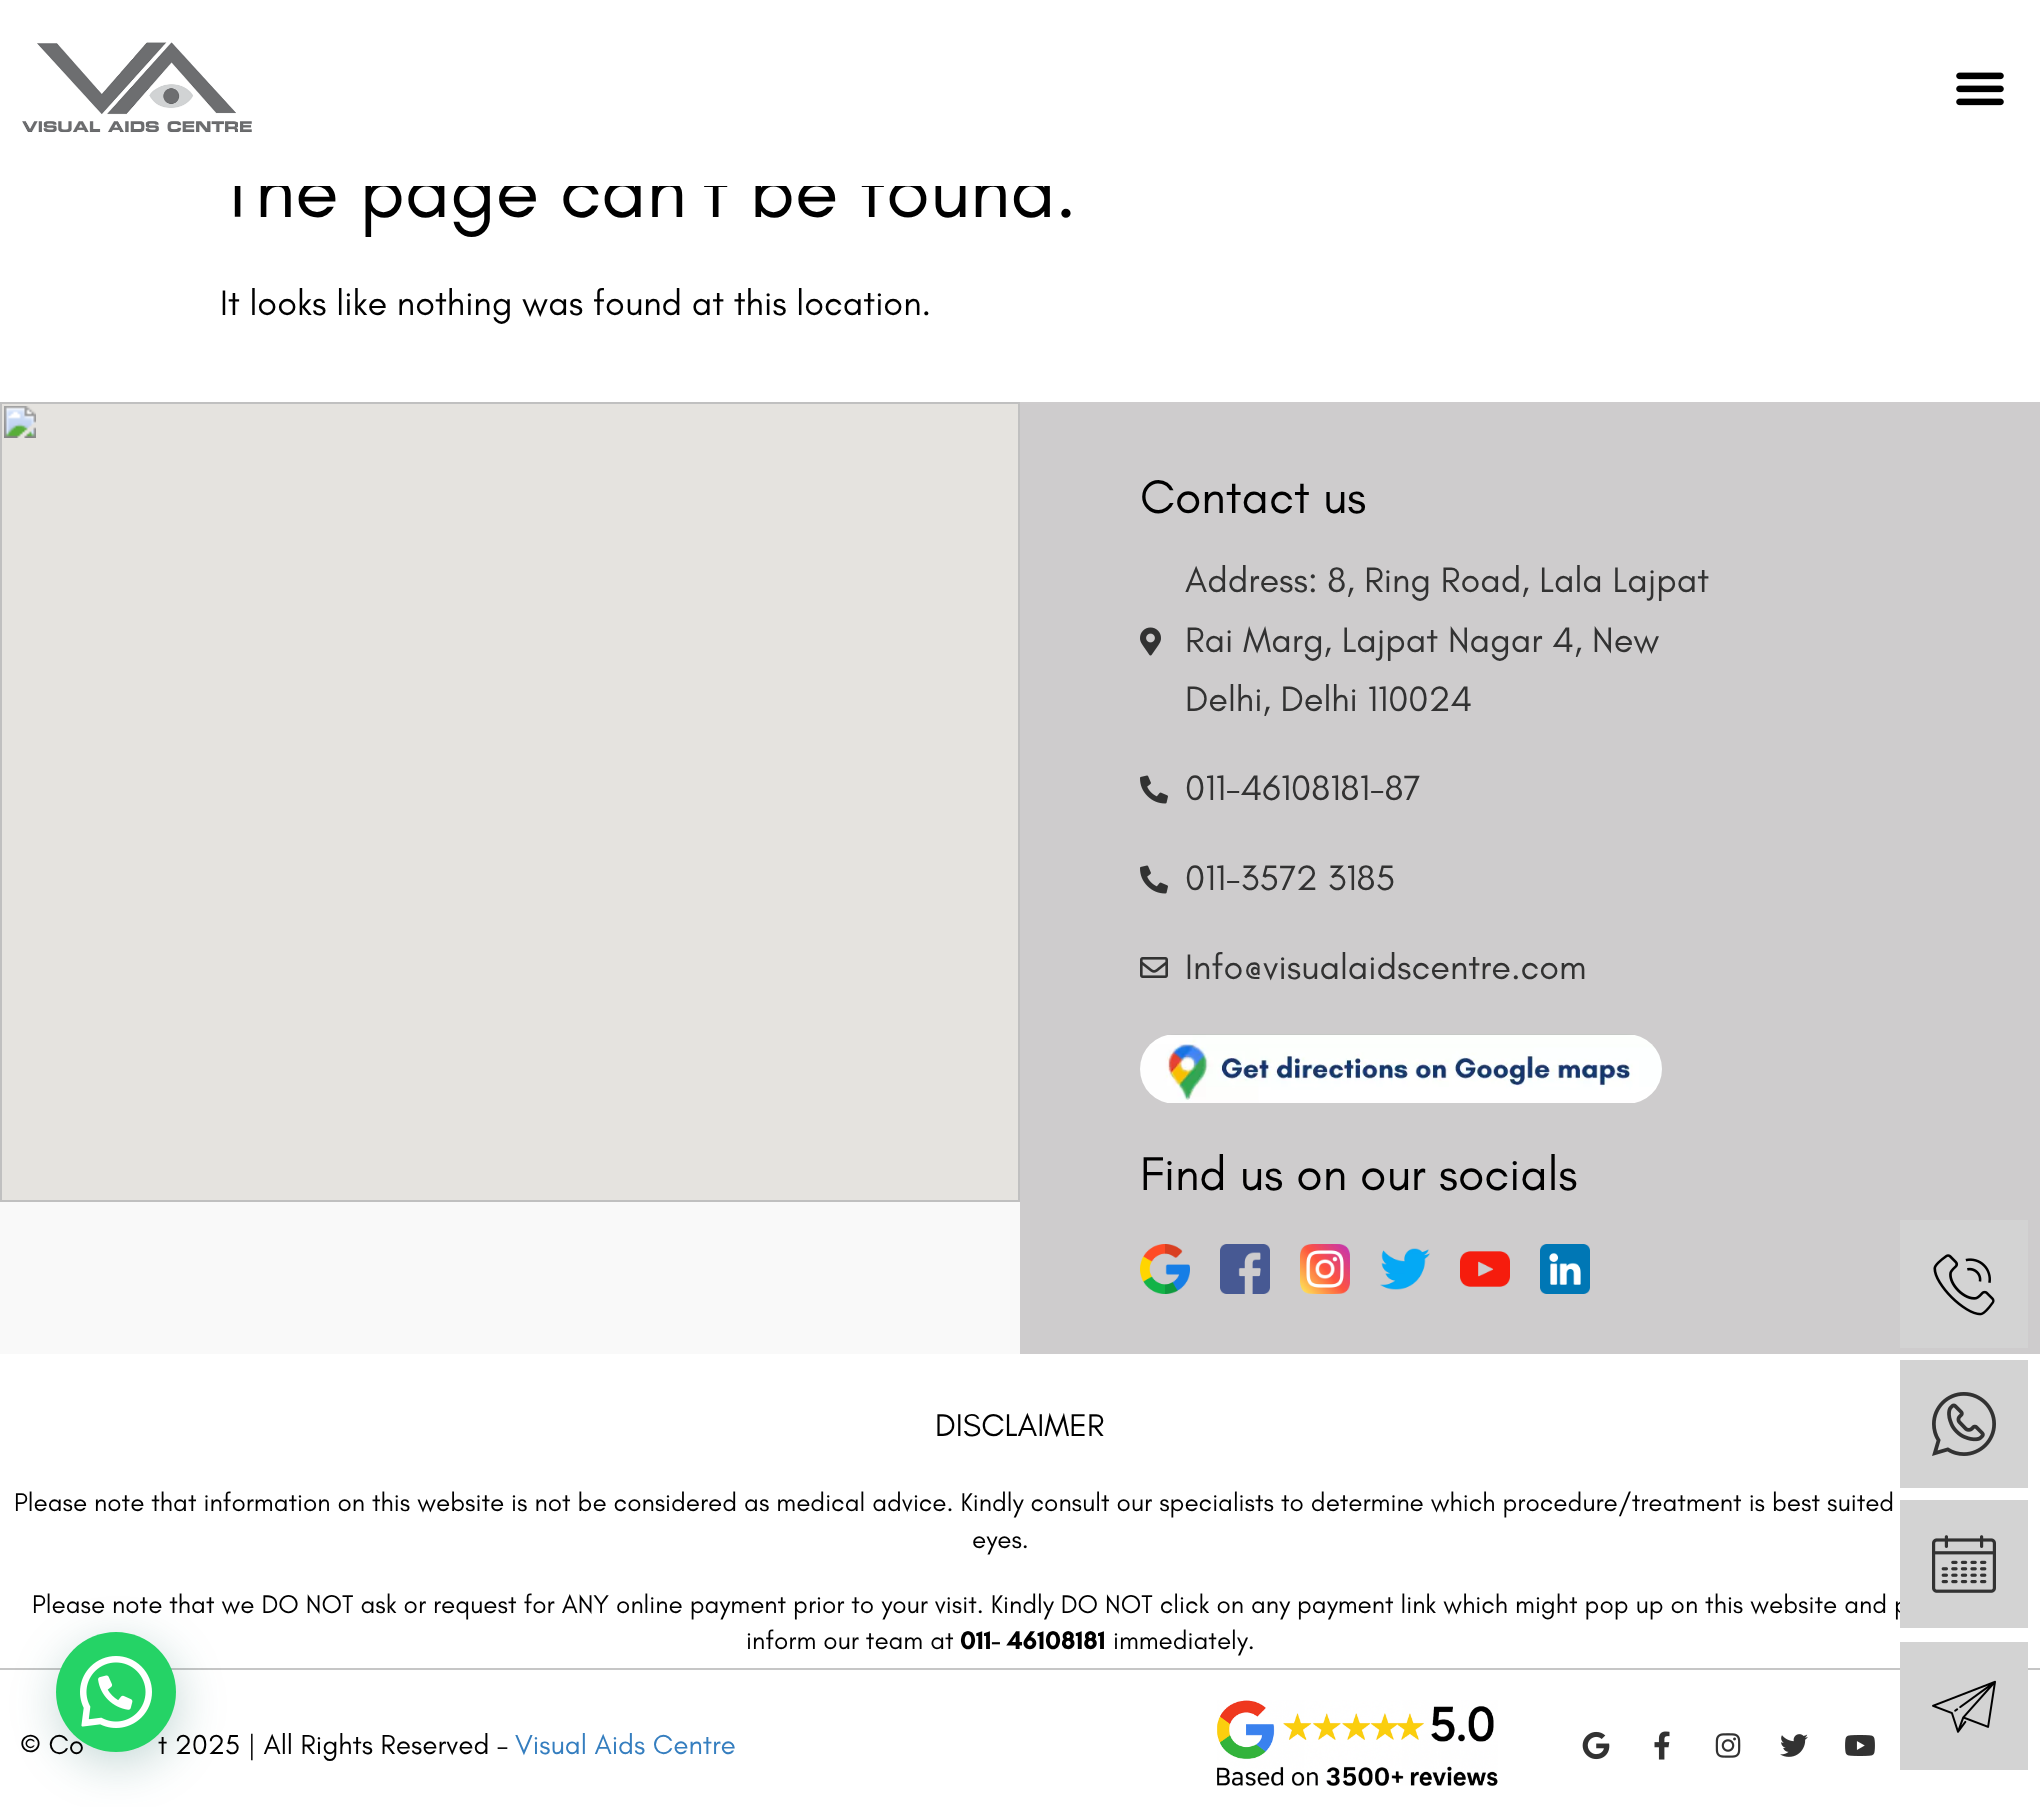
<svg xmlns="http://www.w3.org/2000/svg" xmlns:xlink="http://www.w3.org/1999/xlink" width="2040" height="1807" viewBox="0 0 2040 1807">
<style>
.cls-1{font:80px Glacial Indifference;letter-spacing:-0.4px;fill:#000000}
.cls-2{font:36px Glacial Indifference;fill:#000000}
.cls-3{font:48px Glacial Indifference;fill:#000000}
.cls-4{font:36px Glacial Indifference;fill:#323232}
.cls-5{font:32px Glacial Indifference;fill:#000000}
.cls-6{font:26px Glacial Indifference;fill:#000000}
.cls-7{font:bold 26px Glacial Indifference;fill:#000000}
.cls-8{font:28px Glacial Indifference;fill:#000000}
.cls-9{font:28px Glacial Indifference;fill:#357ebf}
</style>
<rect width="100%" height="100%" fill="#ffffff"/>
<image xlink:href="image0.png" x="22" y="42" width="230" height="91"/>
<image xlink:href="image1.png" x="1956" y="72" width="48" height="34"/>
<rect fill="#f9f9f9" x="0" y="1202" width="1020" height="152"/>
<image xlink:href="image2.png" x="0" y="402" width="1020" height="800"/>
<rect fill="#cecccd" x="1020" y="402" width="1020" height="952"/>
<image xlink:href="image3.png" x="1140" y="627" width="21" height="29"/>
<image xlink:href="image4.png" x="1140" y="775" width="28" height="29"/>
<image xlink:href="image4.png" x="1140" y="865" width="28" height="29"/>
<image xlink:href="image5.png" x="1140" y="957" width="28" height="21"/>
<image xlink:href="image6.png" x="1140" y="1034" width="522" height="69"/>
<image xlink:href="image7.png" x="1140" y="1244" width="50" height="50"/>
<image xlink:href="image8.png" x="1220" y="1244" width="50" height="50"/>
<image xlink:href="image9.png" x="1300" y="1244" width="50" height="50"/>
<image xlink:href="image10.png" x="1380" y="1248" width="50" height="42"/>
<image xlink:href="image11.png" x="1460" y="1251" width="50" height="36"/>
<image xlink:href="image12.png" x="1540" y="1244" width="50" height="50"/>
<rect fill="#c6c6c6" x="0" y="1668" width="2040" height="2"/>
<rect fill="#d3d3d3" x="1900" y="1220" width="128" height="128"/>
<image xlink:href="image13.png" x="1933" y="1254" width="62" height="62"/>
<rect fill="#d3d3d3" x="1900" y="1360" width="128" height="128"/>
<image xlink:href="image14.png" x="1932" y="1392" width="64" height="64"/>
<rect fill="#d3d3d3" x="1900" y="1642" width="128" height="128"/>
<image xlink:href="image16.png" x="1932" y="1680" width="64" height="53"/>
<image xlink:href="image17.png" x="1217" y="1700" width="281" height="86"/>
<image xlink:href="image18.png" x="1582" y="1731" width="28" height="29"/>
<image xlink:href="image19.png" x="1654" y="1731" width="16" height="29"/>
<image xlink:href="image20.png" x="1715" y="1733" width="26" height="25"/>
<image xlink:href="image21.png" x="1780" y="1734" width="28" height="23"/>
<image xlink:href="image22.png" x="1845" y="1735" width="30" height="21"/>
<rect fill="#075e54" fill-opacity="0.24" filter="blur(24px)" x="58" y="1644" width="120" height="120" rx="60"/>
<text class="cls-1" x="220" y="217">The page can’t be found.</text>
<rect fill="#ffffff" x="221" y="157" width="829" height="29"/>
<text class="cls-2" x="220" y="315">It looks like nothing was found at this location.</text>
<text class="cls-3" x="1140" y="513">Contact us</text>
<text class="cls-4"><tspan x="1185" y="592">Address: 8, Ring Road, Lala Lajpat</tspan><tspan x="1185" y="652">Rai Marg, Lajpat Nagar 4, New</tspan><tspan x="1185" y="711">Delhi, Delhi 110024</tspan></text>
<text class="cls-4" x="1185" y="800">011-46108181-87</text>
<text class="cls-4" x="1185" y="890">011-3572 3185</text>
<text class="cls-4" x="1185" y="979">Info@visualaidscentre.com</text>
<text class="cls-3" x="1140" y="1190">Find us on our socials</text>
<text class="cls-5" x="935" y="1436">DISCLAIMER</text>
<text class="cls-6" x="14" y="1511">Please note that information on this website is not be considered as medical advice. Kindly consult our specialists to determine which procedure/treatment is best suited</text>
<text class="cls-6" x="972" y="1548">eyes.</text>
<text class="cls-6" x="32" y="1613">Please note that we DO NOT ask or request for ANY online payment prior to your visit. Kindly DO NOT click on any payment link which might pop up on this website and p</text>
<text class="cls-6" x="746" y="1649">inform our team at</text>
<text class="cls-7" x="960" y="1649">011- 46108181</text>
<text class="cls-6" x="1113" y="1649">immediately.</text>
<rect fill="#d3d3d3" x="1900" y="1500" width="128" height="128"/>
<image xlink:href="image15.png" x="1932" y="1535" width="64" height="58"/>
<text class="cls-8" x="20" y="1754">© Co</text>
<text class="cls-8" x="158" y="1754">t 2025 | All Rights Reserved –</text>
<text class="cls-9" x="515" y="1754">Visual Aids Centre</text>
<circle fill="#25d366" cx="116" cy="1692" r="60"/>
<image xlink:href="image23.png" x="80" y="1656" width="72" height="72"/>
</svg>
